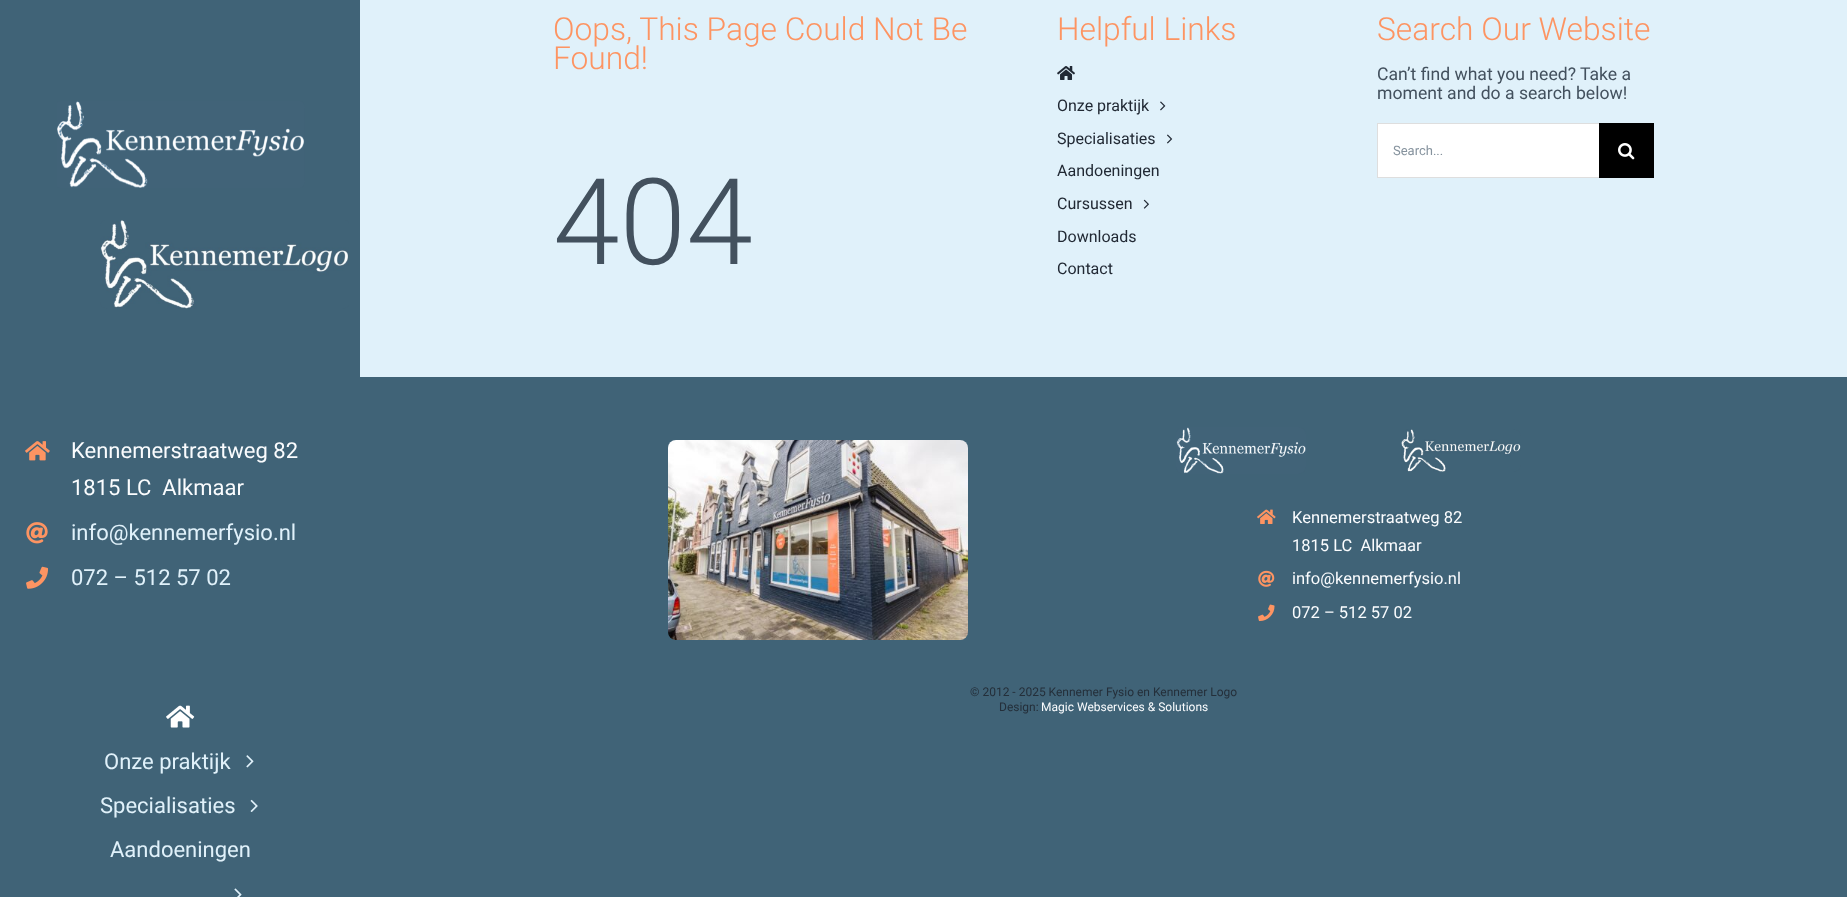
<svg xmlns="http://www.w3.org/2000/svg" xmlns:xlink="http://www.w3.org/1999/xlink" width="1847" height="897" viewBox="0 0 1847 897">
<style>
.cls-1{font:300 31.75px Roboto;fill:#fd9462}
.cls-2{font:300 120px Roboto;fill:#43515e}
.cls-3{font:16px Roboto;fill:#212934}
.cls-4{font:17.6px Roboto;fill:#43515e}
.cls-5{font:13px Roboto;fill:#86939e}
.cls-6{font:22px Roboto;fill:#fafcfe}
.cls-7{font:22px Roboto;fill:#e0f1fa}
.cls-8{font:16.5px Roboto;fill:#fafcfe}
.cls-9{font:12px Roboto;fill:#242f3a}
.cls-10{font:12px Roboto;fill:#fafcfe}
</style>
<rect width="100%" height="100%" fill="#406377"/>
<rect fill="#e0f1fa" x="360" y="0" width="1487" height="377"/>
<image xlink:href="image0.png" x="1057" y="66" width="18" height="14"/>
<image xlink:href="image1.png" x="1160" y="101" width="6" height="10"/>
<image xlink:href="image2.png" x="1167" y="134" width="6" height="10"/>
<image xlink:href="image3.png" x="1143" y="199" width="6" height="10"/>
<rect fill="#ffffff" x="1378" y="124" width="221" height="53"/>
<rect fill="#dedede" x="1377" y="123" width="222" height="1"/>
<rect fill="#dedede" x="1377" y="177" width="222" height="1"/>
<rect fill="#dedede" x="1377" y="123" width="1" height="55"/>
<rect fill="#000000" x="1599" y="123" width="55" height="55"/>
<image xlink:href="image4.png" x="1618" y="143" width="17" height="17"/>
<image xlink:href="image5.png" x="57" y="101" width="248" height="87"/>
<image xlink:href="image6.png" x="100" y="220" width="249" height="89"/>
<image xlink:href="image7.png" x="25" y="441" width="25" height="20"/>
<image xlink:href="image8.png" x="26" y="522" width="22" height="22"/>
<image xlink:href="image9.png" x="26" y="566" width="22" height="23"/>
<image xlink:href="image10.png" x="166" y="705" width="29" height="23"/>
<image xlink:href="image11.png" x="246" y="755" width="8" height="13"/>
<image xlink:href="image12.png" x="250" y="799" width="8" height="13"/>
<image xlink:href="image13.png" x="234" y="888" width="8" height="9"/>
<image xlink:href="image14.png" x="668" y="440" width="300" height="200"/>
<image xlink:href="image15.png" x="1176" y="427" width="130" height="47"/>
<image xlink:href="image16.png" x="1401" y="429" width="120" height="43"/>
<image xlink:href="image17.png" x="1257" y="509" width="19" height="15"/>
<image xlink:href="image18.png" x="1258" y="570" width="17" height="17"/>
<image xlink:href="image19.png" x="1258" y="604" width="17" height="18"/>
<text class="cls-1"><tspan x="553" y="40">Oops, This Page Could Not Be</tspan><tspan x="553" y="69">Found!</tspan></text>
<text class="cls-2" x="553" y="264">404</text>
<text class="cls-1" x="1057" y="40">Helpful Links</text>
<text class="cls-3" x="1057" y="111">Onze praktijk</text>
<text class="cls-3" x="1057" y="144">Specialisaties</text>
<text class="cls-3" x="1057" y="176">Aandoeningen</text>
<text class="cls-3" x="1057" y="209">Cursussen</text>
<text class="cls-3" x="1057" y="242">Downloads</text>
<text class="cls-3" x="1057" y="274">Contact</text>
<text class="cls-1" x="1377" y="40">Search Our Website</text>
<text class="cls-4"><tspan x="1377" y="80">Can’t find what you need? Take a</tspan><tspan x="1377" y="99">moment and do a search below!</tspan></text>
<text class="cls-5" x="1393" y="155">Search...</text>
<text class="cls-6" xml:space="preserve"><tspan x="71" y="458">Kennemerstraatweg 82</tspan><tspan x="71" y="495">1815 LC  Alkmaar</tspan></text>
<text class="cls-7" x="71" y="540">info@kennemerfysio.nl</text>
<text class="cls-7" x="71" y="585">072 – 512 57 02</text>
<text class="cls-7" x="104" y="769">Onze praktijk</text>
<text class="cls-7" x="100" y="813">Specialisaties</text>
<text class="cls-7" x="110" y="857">Aandoeningen</text>
<text class="cls-8" xml:space="preserve"><tspan x="1292" y="523">Kennemerstraatweg 82</tspan><tspan x="1292" y="551">1815 LC  Alkmaar</tspan></text>
<text class="cls-8" x="1292" y="584">info@kennemerfysio.nl</text>
<text class="cls-8" x="1292" y="618">072 – 512 57 02</text>
<text class="cls-9" x="970" y="696">© 2012 - 2025 Kennemer Fysio en Kennemer Logo</text>
<text class="cls-9" x="999" y="711">Design:</text>
<text class="cls-10" x="1041" y="711">Magic Webservices &amp; Solutions</text>
</svg>
